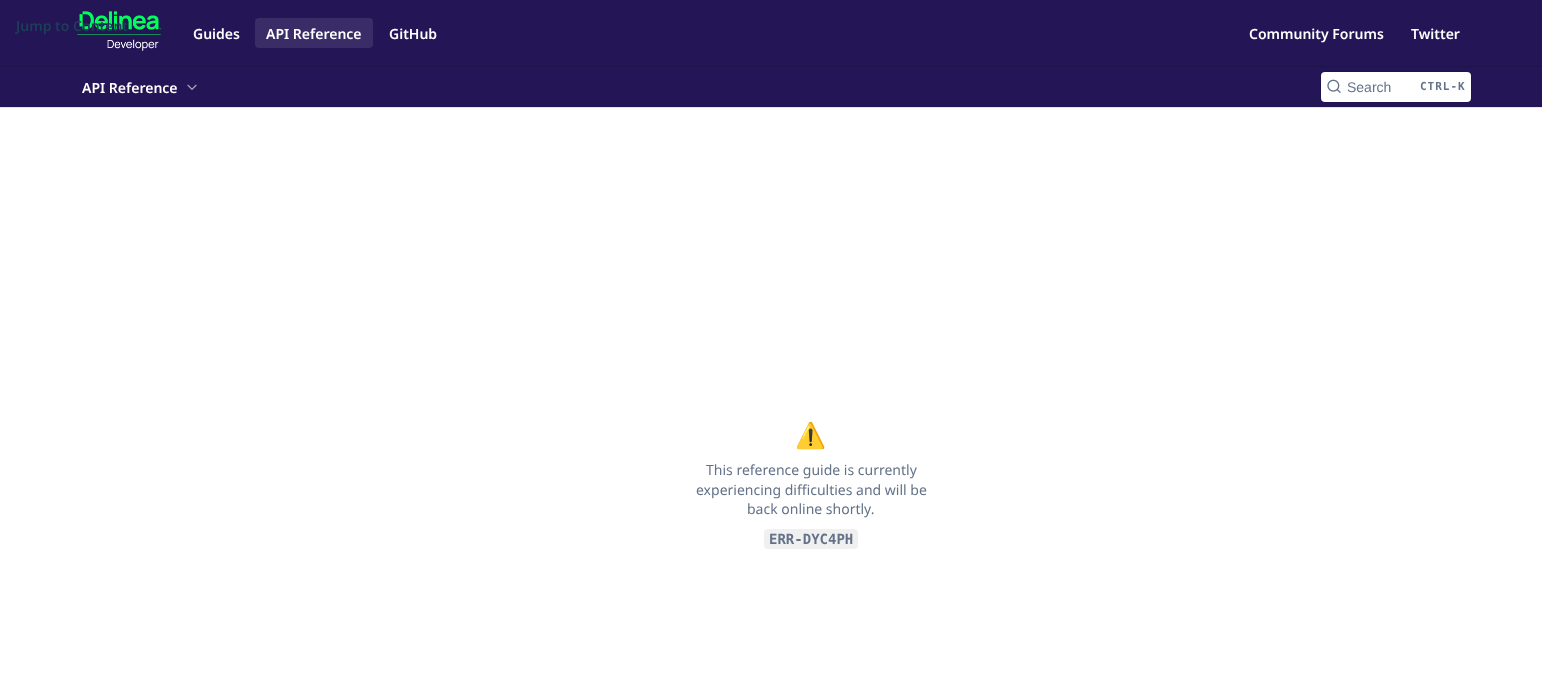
<svg xmlns="http://www.w3.org/2000/svg" xmlns:xlink="http://www.w3.org/1999/xlink" width="1542" height="676" viewBox="0 0 1542 676">
<style>
.cls-1{font:600 14px Noto Sans;fill:#1d3e57}
.cls-2{font:600 14px Noto Sans;fill:#ffffff}
.cls-3{font:14px Liberation Sans;fill:#637288}
.cls-4{font:bold 11px DejaVu Sans Mono;letter-spacing:1px;fill:#637288}
.cls-5{font:25px Noto Color Emoji;fill:#000000}
.cls-6{font:14px Noto Sans;fill:#637288}
.cls-7{font:bold 14px DejaVu Sans Mono;fill:#637288}
</style>
<rect width="100%" height="100%" fill="#ffffff"/>
<rect fill="#e6e6e6" x="0" y="107" width="1542" height="1"/>
<rect fill="#231556" x="0" y="0" width="1542" height="107"/>
<rect fill="#20134d" x="0" y="66" width="1542" height="1"/>
<image xlink:href="image0.png" x="77" y="11" width="84" height="40"/>
<rect fill="#392c67" x="255" y="18" width="118" height="30" rx="4"/>
<image xlink:href="image1.png" x="187" y="84" width="10" height="6"/>
<rect fill="none" stroke="#20134d" x="1320.5" y="71.5" width="151" height="31" rx="4.5"/>
<rect fill="#ffffff" x="1321" y="72" width="150" height="30" rx="4"/>
<image xlink:href="image2.png" x="1327" y="79" width="14" height="14"/>
<rect fill="#f0f0f0" x="764" y="529" width="94" height="20" rx="4"/>
<text class="cls-1" x="16" y="31">Jump to Content</text>
<text class="cls-2" x="193" y="39">Guides</text>
<text class="cls-2" x="266" y="39">API Reference</text>
<text class="cls-2" x="389" y="39">GitHub</text>
<text class="cls-2" x="1249" y="39">Community Forums</text>
<text class="cls-2" x="1411" y="39">Twitter</text>
<text class="cls-2" x="82" y="93">API Reference</text>
<text class="cls-3" x="1347" y="92">Search</text>
<text class="cls-4" x="1420" y="90">CTRL-K</text>
<text class="cls-5" x="795" y="444">⚠️</text>
<text class="cls-6" x="706" y="475">This reference guide is currently</text>
<text class="cls-6" x="696" y="495">experiencing difficulties and will be</text>
<text class="cls-6" x="747" y="514">back online shortly.</text>
<text class="cls-7" x="769" y="544">ERR-DYC4PH</text>
</svg>
